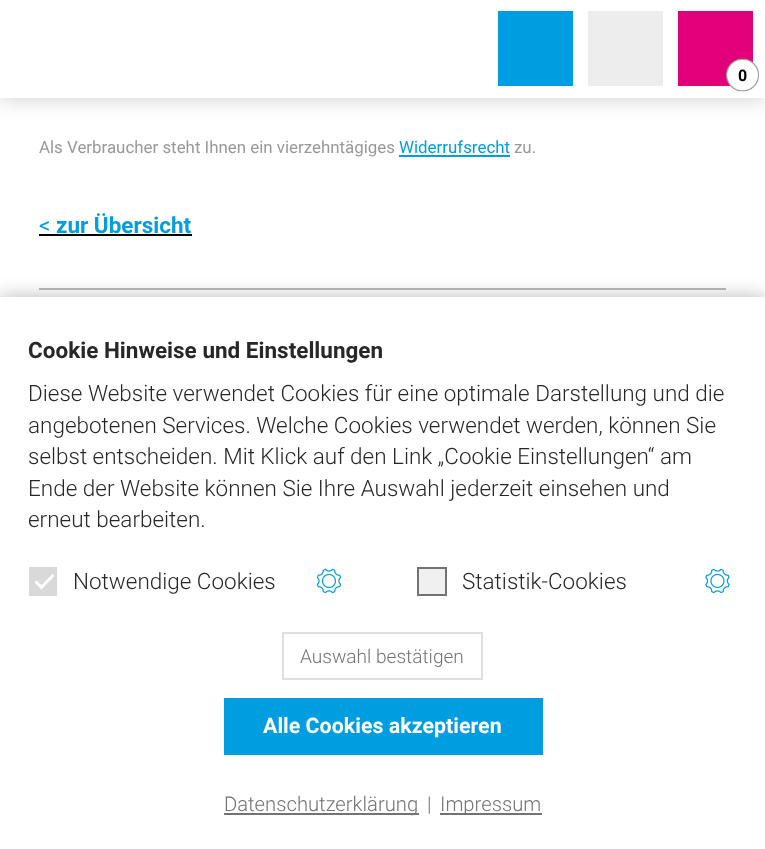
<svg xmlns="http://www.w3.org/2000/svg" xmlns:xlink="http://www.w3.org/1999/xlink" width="765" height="849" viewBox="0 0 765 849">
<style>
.cls-1{font:bold 16px Roboto;fill:#000000}
.cls-2{font:16.9px Roboto;fill:#999999}
.cls-3{font:16.9px Roboto;fill:#009ee0}
.cls-4{font:22.5px Roboto;fill:#009ee0}
.cls-5{font:bold 22.5px Roboto;fill:#009ee0}
.cls-6{font:bold 22.5px Roboto;fill:#272727}
.cls-7{font:300 22.5px Roboto;fill:#272727}
.cls-8{font:300 19.1px Roboto;fill:#737373}
.cls-9{font:bold 21.4px Roboto;fill:#ffffff}
.cls-10{font:300 20.25px Roboto;fill:#737373}
</style>
<rect width="100%" height="100%" fill="#ffffff"/>
<rect fill="#000000" fill-opacity="0.2" filter="blur(11px)" x="0" y="0" width="765" height="98"/>
<rect fill="#ffffff" x="0" y="0" width="765" height="98"/>
<rect fill="#009ee0" x="498" y="11" width="75" height="75"/>
<rect fill="#ededed" x="588" y="11" width="75" height="75"/>
<rect fill="#e2007a" x="678" y="11" width="75" height="75"/>
<image xlink:href="image0.png" x="726" y="58" width="33" height="34"/>
<rect fill="#009ee0" x="399" y="155" width="111" height="2"/>
<rect fill="#000000" x="39" y="234" width="153" height="2"/>
<rect fill="#bababa" x="39" y="288" width="687" height="2"/>
<rect fill="#000000" fill-opacity="0.26" filter="blur(9px)" x="0" y="296" width="765" height="552"/>
<rect fill="#ffffff" x="0" y="297" width="765" height="552"/>
<rect fill="#d9d9d9" x="29" y="567" width="28" height="29"/>
<path fill="#ffffff" d="M52.5 574L54.5 576L41.5 589.5L39.5 587Z"/>
<path fill="#ffffff" d="M36.5 580.5L43.5 587L41.5 589.5L34.5 582.5Z"/>
<image xlink:href="image1.png" x="316" y="568" width="26" height="26"/>
<rect fill="#f0f0f0" stroke="#737373" stroke-width="2" x="418" y="568" width="28" height="27"/>
<image xlink:href="image2.png" x="705" y="568" width="25" height="26"/>
<rect fill="none" stroke="#dfdfdf" stroke-width="2" x="283" y="633" width="199" height="46"/>
<rect fill="#009ee0" x="224" y="698" width="319" height="57"/>
<rect fill="#737373" x="224" y="813" width="195" height="2"/>
<rect fill="#737373" x="440" y="813" width="102" height="2"/>
<text class="cls-1" x="738" y="81">0</text>
<text class="cls-2" x="39" y="153">Als Verbraucher steht Ihnen ein vierzehntägiges</text>
<text class="cls-3" x="399" y="153">Widerrufsrecht</text>
<text class="cls-2" x="514" y="153">zu.</text>
<text class="cls-4" x="39" y="233">&lt;</text>
<text class="cls-5" x="56" y="233">zur Übersicht</text>
<text class="cls-6" x="28" y="358">Cookie Hinweise und Einstellungen</text>
<text class="cls-7"><tspan x="28" y="401">Diese Website verwendet Cookies für eine optimale Darstellung und die</tspan><tspan x="28" y="433">angebotenen Services. Welche Cookies verwendet werden, können Sie</tspan><tspan x="28" y="464">selbst entscheiden. Mit Klick auf den Link „Cookie Einstellungen“ am</tspan><tspan x="28" y="496">Ende der Website können Sie Ihre Auswahl jederzeit einsehen und</tspan><tspan x="28" y="527">erneut bearbeiten.</tspan></text>
<text class="cls-7" x="73" y="589">Notwendige Cookies</text>
<text class="cls-7" x="462" y="589">Statistik-Cookies</text>
<text class="cls-8" x="300" y="663">Auswahl bestätigen</text>
<text class="cls-9" x="263" y="733">Alle Cookies akzeptieren</text>
<text class="cls-10" x="224" y="811">Datenschutzerklärung</text>
<text class="cls-10" x="427" y="811">|</text>
<text class="cls-10" x="440" y="811">Impressum</text>
</svg>
